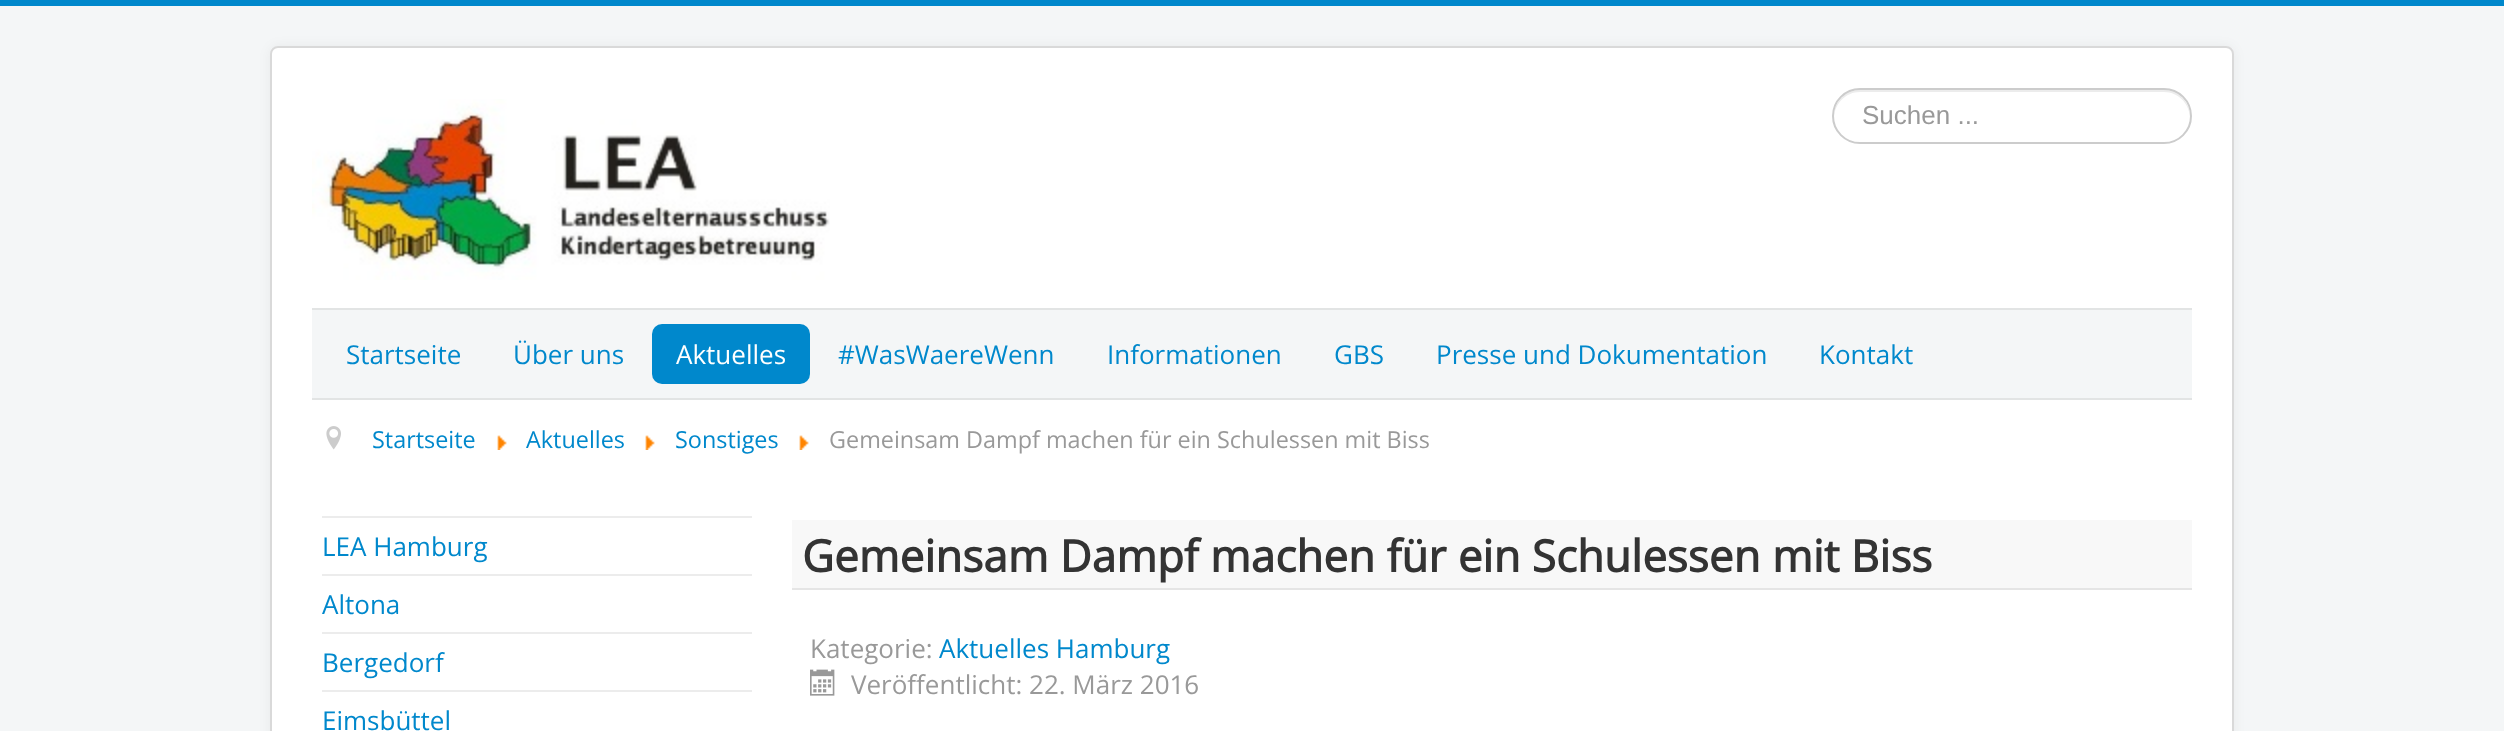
<svg xmlns="http://www.w3.org/2000/svg" xmlns:xlink="http://www.w3.org/1999/xlink" width="2504" height="731" viewBox="0 0 2504 731">
<style>
.cls-1{font:26px Liberation Sans;fill:#999999}
.cls-2{font:26px Open Sans;fill:#0088cc}
.cls-3{font:26px Open Sans;fill:#ffffff}
.cls-4{font:23.4px Open Sans;fill:#0088cc}
.cls-5{font:23.4px Open Sans;fill:#999999}
.cls-6{font:bold 44px Open Sans;fill:#333333}
.cls-7{font:26px Open Sans;fill:#999999}
</style>
<rect width="100%" height="100%" fill="#f4f6f7"/>
<rect fill="#0088cc" x="0" y="0" width="2504" height="6"/>
<rect fill="#000000" fill-opacity="0.05" filter="blur(6px)" x="270" y="46" width="1964" height="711" rx="8"/>
<rect fill="#ffffff" x="270" y="46" width="1964" height="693" rx="8"/>
<rect fill="none" stroke="#000000" stroke-opacity="0.15" stroke-width="2" x="271" y="47" width="1962" height="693" rx="7"/>
<image xlink:href="image0.png" x="312" y="99" width="518" height="181"/>
<path fill="#ececec" d="M1860 92H2164C2178 92 2189 103 2190 117V116C2190 102 2178 90 2164 90H1860C1846 90 1834 102 1834 116V117C1835 103 1846 92 1860 92Z"/>
<rect fill="none" stroke="#cccccc" stroke-width="2" x="1833" y="89" width="358" height="54" rx="27"/>
<rect fill="#f4f6f7" x="312" y="310" width="1880" height="88"/>
<rect fill="#e2e4e4" x="312" y="308" width="1880" height="2"/>
<rect fill="#e2e4e4" x="312" y="398" width="1880" height="2"/>
<rect fill="#0088cc" x="652" y="324" width="158" height="60" rx="10"/>
<image xlink:href="image1.png" x="326" y="426" width="15" height="24"/>
<image xlink:href="image2.png" x="497" y="435" width="10" height="15"/>
<image xlink:href="image2.png" x="645" y="435" width="10" height="15"/>
<image xlink:href="image2.png" x="799" y="435" width="10" height="15"/>
<rect fill="#ececec" x="322" y="516" width="430" height="2"/>
<rect fill="#ececec" x="322" y="574" width="430" height="2"/>
<rect fill="#ececec" x="322" y="632" width="430" height="2"/>
<rect fill="#ececec" x="322" y="690" width="430" height="2"/>
<rect fill="#f8f8f8" x="792" y="520" width="1400" height="68"/>
<rect fill="#e5e5e5" x="792" y="588" width="1400" height="2"/>
<image xlink:href="image3.png" x="810" y="669" width="25" height="27"/>
<text class="cls-1" x="1862" y="124">Suchen ...</text>
<text class="cls-2" x="346" y="364">Startseite</text>
<text class="cls-2" x="513" y="364">Über uns</text>
<text class="cls-3" x="676" y="364">Aktuelles</text>
<text class="cls-2" x="838" y="364">#WasWaereWenn</text>
<text class="cls-2" x="1107" y="364">Informationen</text>
<text class="cls-2" x="1334" y="364">GBS</text>
<text class="cls-2" x="1436" y="364">Presse und Dokumentation</text>
<text class="cls-2" x="1819" y="364">Kontakt</text>
<text class="cls-4" x="372" y="448">Startseite</text>
<text class="cls-4" x="526" y="448">Aktuelles</text>
<text class="cls-4" x="675" y="448">Sonstiges</text>
<text class="cls-5" x="829" y="448">Gemeinsam Dampf machen für ein Schulessen mit Biss</text>
<text class="cls-2" x="322" y="556">LEA Hamburg</text>
<text class="cls-2" x="322" y="614">Altona</text>
<text class="cls-2" x="322" y="672">Bergedorf</text>
<text class="cls-2" x="322" y="730">Eimsbüttel</text>
<text class="cls-6" x="802" y="572">Gemeinsam Dampf machen für ein Schulessen mit Biss</text>
<text class="cls-7" x="810" y="658">Kategorie:</text>
<text class="cls-2" x="939" y="658">Aktuelles Hamburg</text>
<text class="cls-7" x="851" y="694">Veröffentlicht: 22. März 2016</text>
</svg>
